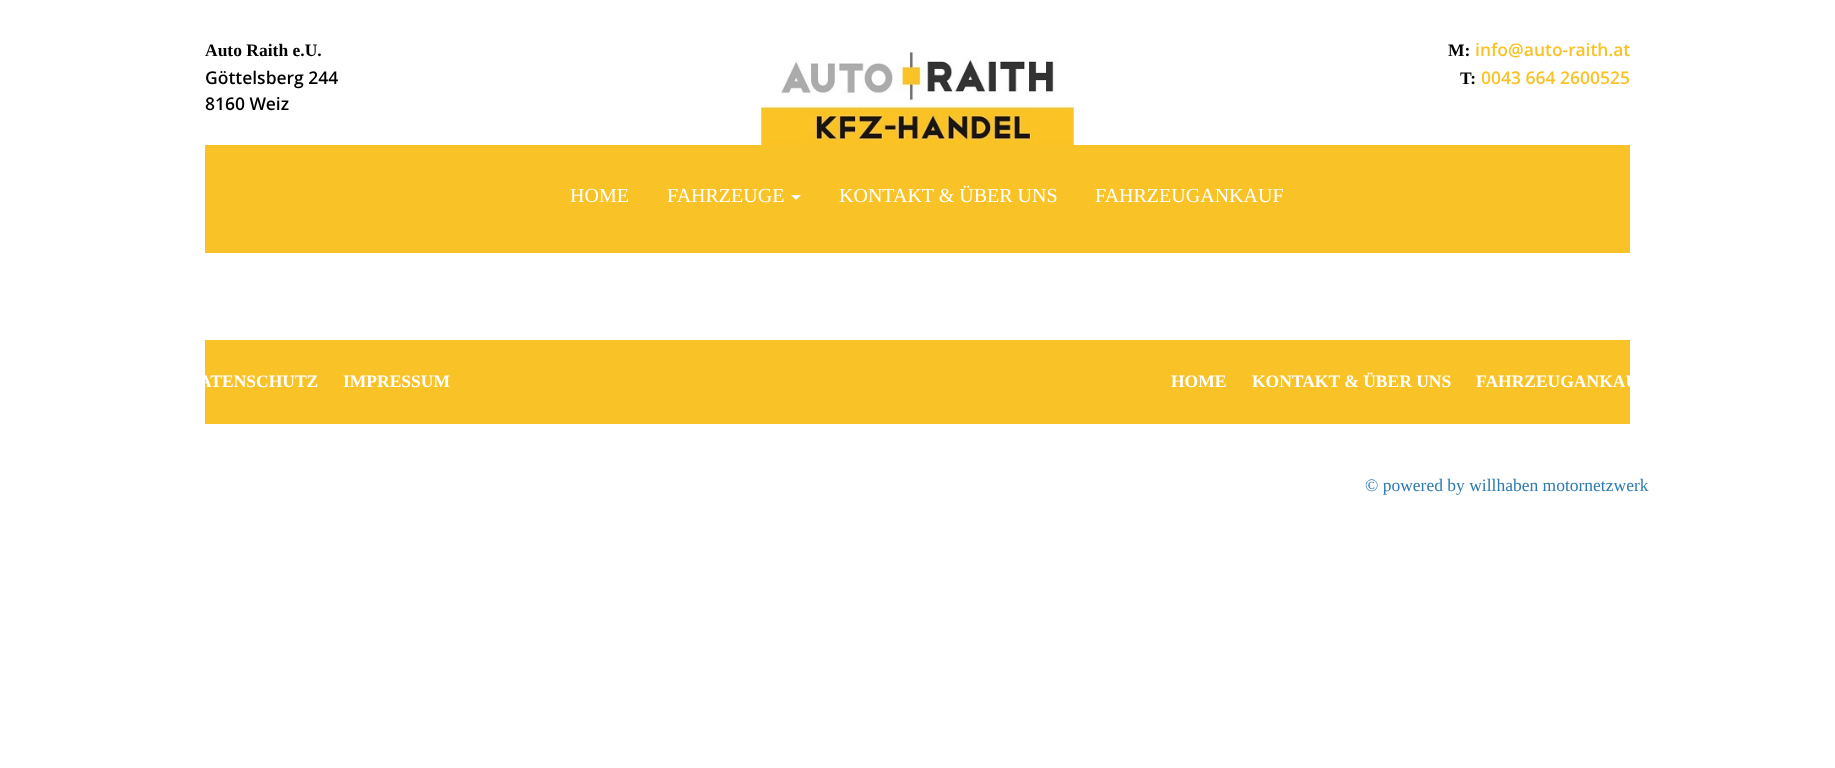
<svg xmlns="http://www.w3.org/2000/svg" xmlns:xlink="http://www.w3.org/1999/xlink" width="1835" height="768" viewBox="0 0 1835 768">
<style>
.cls-1{font:bold 17.5px Liberation Serif;fill:#000000}
.cls-2{font:600 17.5px Open Sans;fill:#000000}
.cls-3{font:600 17.5px Open Sans;fill:#f9c328}
.cls-4{font:20px Liberation Serif;fill:#ffffff}
.cls-5{font:bold 17.5px Liberation Serif;fill:#ffffff}
.cls-6{font:17.5px Liberation Serif;fill:#2e7bb0}
</style>
<rect width="100%" height="100%" fill="#ffffff"/>
<image xlink:href="image0.png" x="761" y="52" width="313" height="93"/>
<rect fill="#f9c328" x="205" y="145" width="1425" height="108"/>
<path fill="#ffffff" d="M791 195H801L796 200Z"/>
<rect fill="#f9c328" x="205" y="340" width="1425" height="84"/>
<text class="cls-1" x="205" y="56">Auto Raith e.U.</text>
<text class="cls-2"><tspan x="205" y="84">Göttelsberg 244</tspan><tspan x="205" y="110">8160 Weiz</tspan></text>
<text class="cls-1" x="1448" y="56">M:</text>
<text class="cls-3" x="1475" y="56">info@auto-raith.at</text>
<text class="cls-1" x="1460" y="84">T:</text>
<text class="cls-3" x="1481" y="84">0043 664 2600525</text>
<text class="cls-4" x="570" y="202">HOME</text>
<text class="cls-4" x="667" y="202">FAHRZEUGE</text>
<text class="cls-4" x="839" y="202">KONTAKT &amp; ÜBER UNS</text>
<text class="cls-4" x="1095" y="202">FAHRZEUGANKAUF</text>
<text class="cls-5" x="199" y="387">ATENSCHUTZ</text>
<text class="cls-5" x="343" y="387">IMPRESSUM</text>
<text class="cls-5" x="1171" y="387">HOME</text>
<text class="cls-5" x="1252" y="387">KONTAKT &amp; ÜBER UNS</text>
<text class="cls-5" x="1476" y="387">FAHRZEUGANKAU</text>
<text class="cls-6" x="1365" y="491">© powered by willhaben motornetzwerk</text>
</svg>
